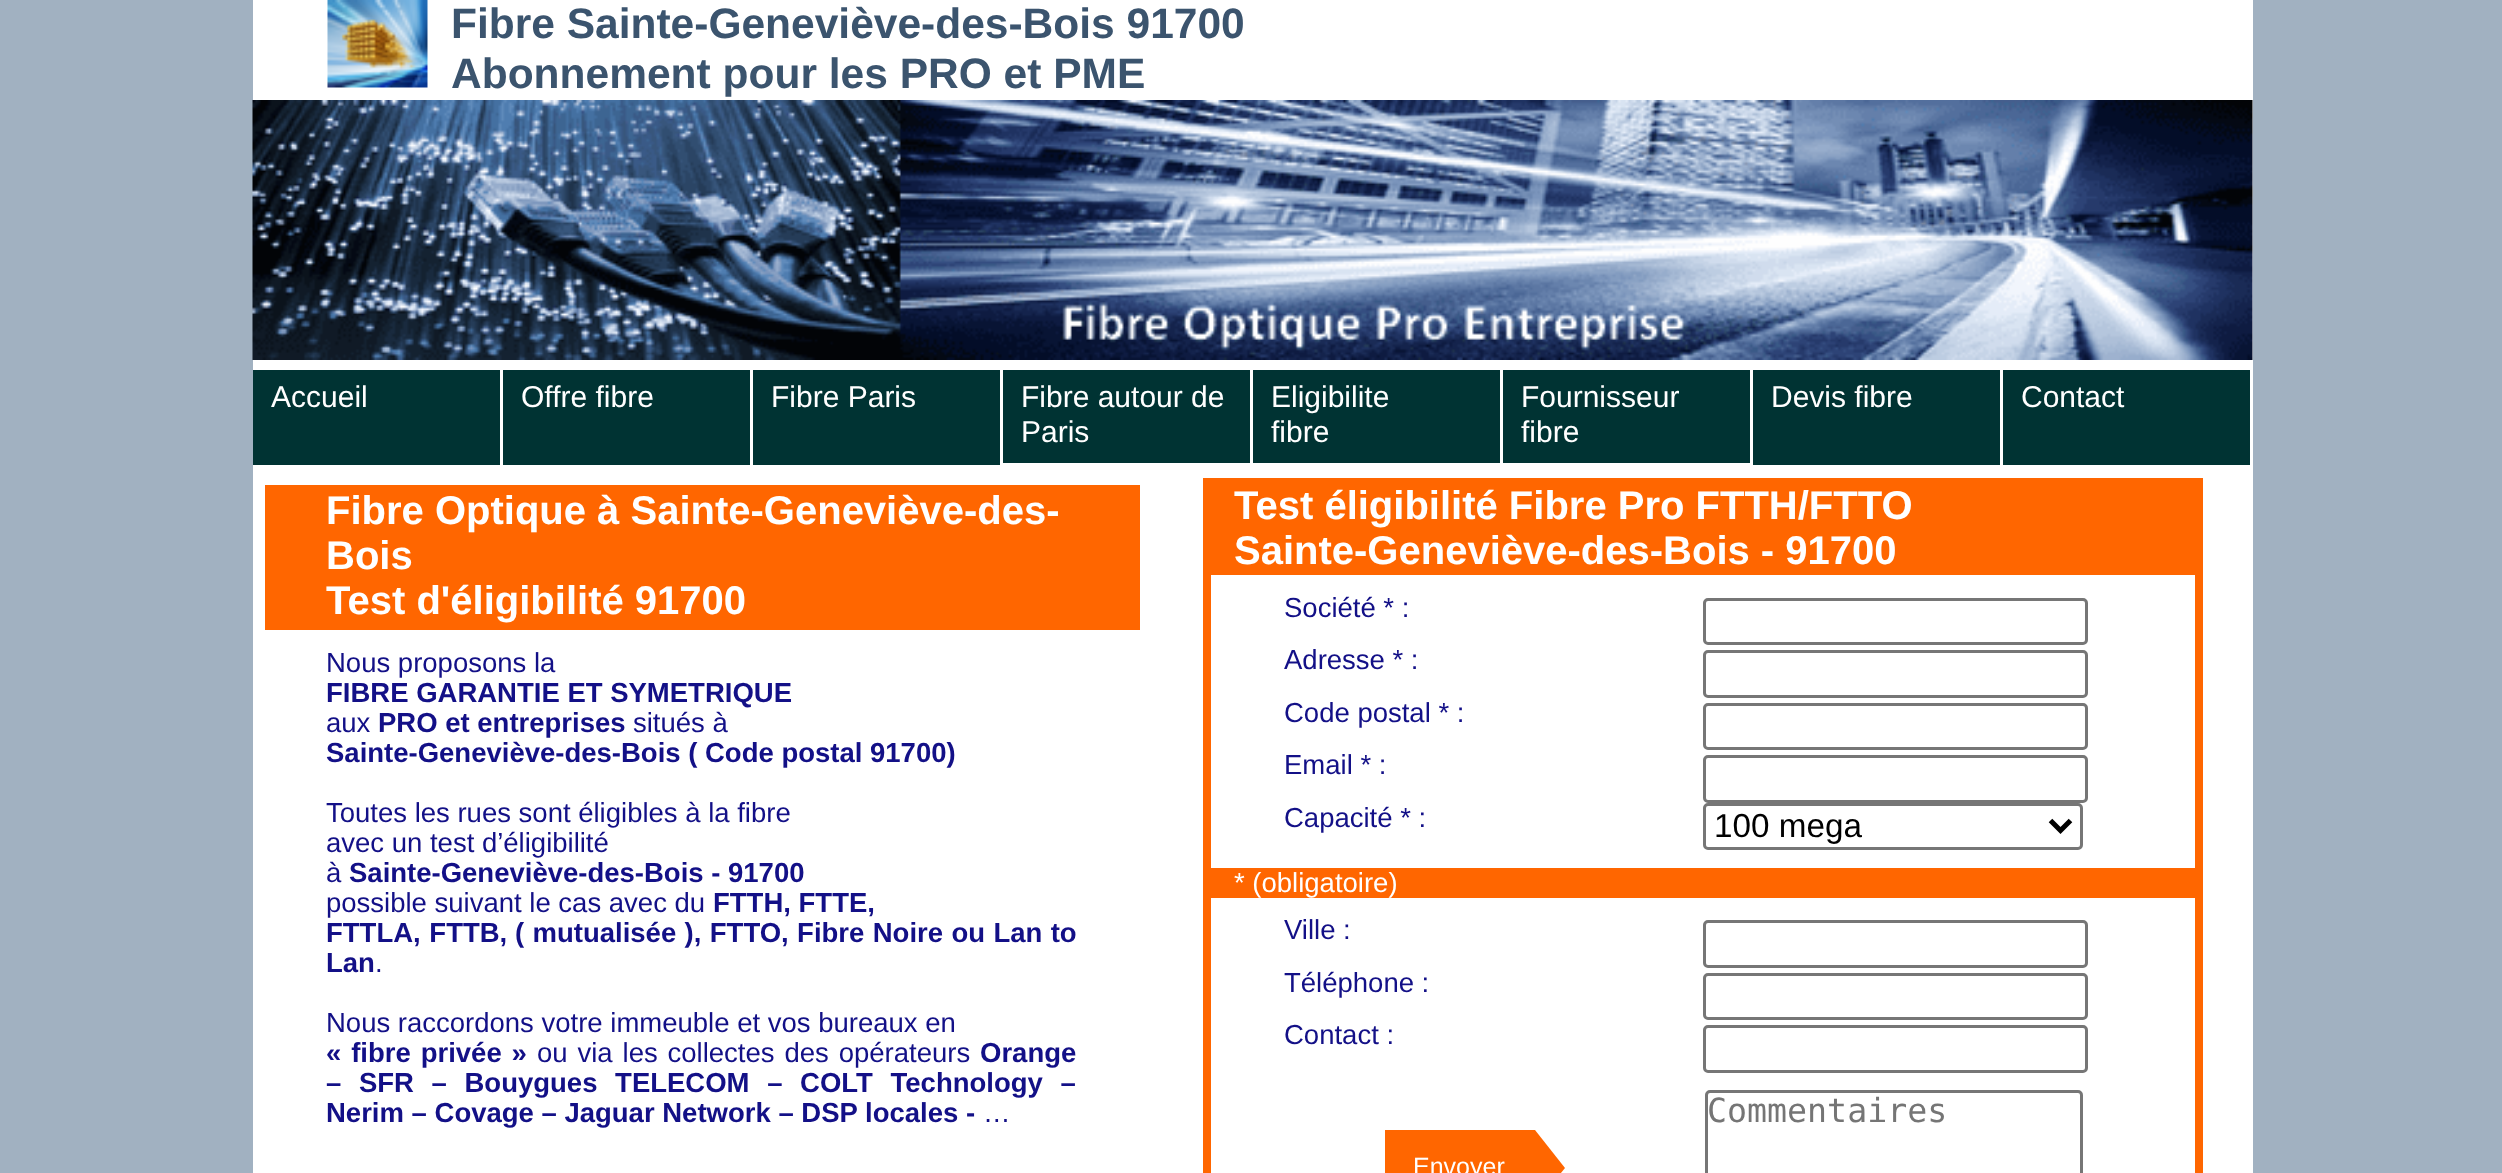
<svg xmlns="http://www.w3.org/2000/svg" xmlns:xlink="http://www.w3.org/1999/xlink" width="2502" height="1173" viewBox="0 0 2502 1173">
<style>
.cls-1{font:bold 42.5px Liberation Sans;fill:#3b546e}
.cls-2{font:30px Liberation Sans;fill:#ffffff}
.cls-3{font:bold 40px Liberation Sans;fill:#ffffff}
.cls-4{font:27.5px Liberation Sans;fill:#131087}
.cls-5{font:bold 27.5px Liberation Sans;fill:#131087}
.cls-6{font:33.25px Liberation Sans;fill:#000000}
.cls-7{font:27.5px Liberation Sans;fill:#ffffff}
.cls-8{font:33.25px DejaVu Sans Mono;fill:#757575}
.cls-9{font:25px Liberation Sans;fill:#ffffff}
</style>
<rect width="100%" height="100%" fill="#a1b1c1"/>
<rect fill="#ffffff" x="253" y="0" width="2000" height="1173"/>
<image xlink:href="image0.png" x="327" y="0" width="101" height="88"/>
<image xlink:href="image1.png" x="252" y="100" width="2001" height="260"/>
<rect fill="#003333" x="253" y="370" width="247" height="95"/>
<rect fill="#003333" x="503" y="370" width="247" height="95"/>
<rect fill="#003333" x="753" y="370" width="247" height="95"/>
<rect fill="#003333" x="1003" y="370" width="247" height="93"/>
<rect fill="#003333" x="1253" y="370" width="247" height="93"/>
<rect fill="#003333" x="1503" y="370" width="247" height="93"/>
<rect fill="#003333" x="1753" y="370" width="247" height="95"/>
<rect fill="#003333" x="2003" y="370" width="247" height="95"/>
<rect fill="#ff6600" x="265" y="485" width="875" height="145"/>
<rect fill="none" stroke="#ff6600" stroke-width="8" x="1207" y="482" width="992" height="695"/>
<rect fill="#ff6600" x="1211" y="486" width="984" height="89"/>
<rect fill="none" stroke="#767676" stroke-width="3" x="1704.5" y="599.5" width="382" height="44" rx="3.5"/>
<rect fill="none" stroke="#767676" stroke-width="3" x="1704.5" y="651.5" width="382" height="45" rx="3.5"/>
<rect fill="none" stroke="#767676" stroke-width="3" x="1704.5" y="704.5" width="382" height="44" rx="3.5"/>
<rect fill="none" stroke="#767676" stroke-width="3" x="1704.5" y="756.5" width="382" height="45" rx="3.5"/>
<rect fill="none" stroke="#767676" stroke-width="3" x="1704.5" y="804.5" width="377" height="44" rx="3.5"/>
<path fill="none" stroke="#000000" stroke-width="5" d="M2050.5 820.5L2060.5 830.5L2070.5 820.5"/>
<rect fill="#ff6600" x="1211" y="868" width="984" height="30"/>
<rect fill="none" stroke="#767676" stroke-width="3" x="1704.5" y="921.5" width="382" height="45" rx="3.5"/>
<rect fill="none" stroke="#767676" stroke-width="3" x="1704.5" y="974.5" width="382" height="44" rx="3.5"/>
<rect fill="none" stroke="#767676" stroke-width="3" x="1704.5" y="1026.5" width="382" height="45" rx="3.5"/>
<rect fill="none" stroke="#767676" stroke-width="3" x="1706.5" y="1091.5" width="375" height="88" rx="3.5"/>
<rect fill="#ff6600" x="1385" y="1130" width="150" height="43"/>
<path fill="#ff6600" d="M1535 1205V1130L1565 1168Z"/>
<text class="cls-1"><tspan x="451" y="38">Fibre Sainte-Geneviève-des-Bois 91700</tspan><tspan x="451" y="88">Abonnement pour les PRO et PME</tspan></text>
<text class="cls-2" x="271" y="407">Accueil</text>
<text class="cls-2" x="521" y="407">Offre fibre</text>
<text class="cls-2" x="771" y="407">Fibre Paris</text>
<text class="cls-2"><tspan x="1021" y="407">Fibre autour de</tspan><tspan x="1021" y="442">Paris</tspan></text>
<text class="cls-2"><tspan x="1271" y="407">Eligibilite</tspan><tspan x="1271" y="442">fibre</tspan></text>
<text class="cls-2"><tspan x="1521" y="407">Fournisseur</tspan><tspan x="1521" y="442">fibre</tspan></text>
<text class="cls-2" x="1771" y="407">Devis fibre</text>
<text class="cls-2" x="2021" y="407">Contact</text>
<text class="cls-3"><tspan x="326" y="524">Fibre Optique à Sainte-Geneviève-des-</tspan><tspan x="326" y="569">Bois</tspan><tspan x="326" y="614">Test d'éligibilité 91700</tspan></text>
<text class="cls-4" x="326" y="672">Nous proposons la</text>
<text class="cls-5" x="326" y="702">FIBRE GARANTIE ET SYMETRIQUE</text>
<text class="cls-4" x="326" y="732">aux</text>
<text class="cls-5" x="378" y="732">PRO et entreprises</text>
<text class="cls-4" x="633" y="732">situés à</text>
<text class="cls-5" x="326" y="762">Sainte-Geneviève-des-Bois ( Code postal 91700)</text>
<text class="cls-4"><tspan x="326" y="822">Toutes les rues sont éligibles à la fibre</tspan><tspan x="326" y="852">avec un test d’éligibilité</tspan><tspan x="326" y="882">à</tspan></text>
<text class="cls-5" x="349" y="882">Sainte-Geneviève-des-Bois - 91700</text>
<text class="cls-4" x="326" y="912">possible suivant le cas avec du</text>
<text class="cls-5" x="713" y="912">FTTH, FTTE,</text>
<text class="cls-5" x="326" y="942" word-spacing="1">FTTLA, FTTB,</text>
<text class="cls-5" x="515" y="942" word-spacing="0.75">( mutualisée ), FTTO, Fibre Noire ou Lan to</text>
<text class="cls-5" x="326" y="972">Lan</text>
<text class="cls-4" x="375" y="972">.</text>
<text class="cls-4" x="326" y="1032">Nous raccordons votre immeuble et vos bureaux en</text>
<text class="cls-5" x="326" y="1062" word-spacing="2.25">« fibre privée »</text>
<text class="cls-4" x="537" y="1062" word-spacing="2.25">ou via les collectes des opérateurs</text>
<text class="cls-5" x="980" y="1062">Orange</text>
<text class="cls-5"><tspan x="326" y="1092" word-spacing="10">– SFR – Bouygues TELECOM – COLT Technology –</tspan><tspan x="326" y="1122">Nerim – Covage – Jaguar Network – DSP locales -</tspan></text>
<text class="cls-4" x="983" y="1122">…</text>
<text class="cls-3"><tspan x="1234" y="519">Test éligibilité Fibre Pro FTTH/FTTO</tspan><tspan x="1234" y="564">Sainte-Geneviève-des-Bois - 91700</tspan></text>
<text class="cls-4"><tspan x="1284" y="617">Société * :</tspan><tspan x="1284" y="669">Adresse * :</tspan><tspan x="1284" y="722">Code postal * :</tspan><tspan x="1284" y="774">Email * :</tspan><tspan x="1284" y="827">Capacité * :</tspan></text>
<text class="cls-6" x="1714" y="837">100 mega</text>
<text class="cls-7" x="1234" y="892">* (obligatoire)</text>
<text class="cls-4"><tspan x="1284" y="939">Ville :</tspan><tspan x="1284" y="992">Téléphone :</tspan><tspan x="1284" y="1044">Contact :</tspan></text>
<text class="cls-8" x="1707" y="1122">Commentaires</text>
<text class="cls-9" x="1413" y="1175">Envoyer</text>
</svg>
